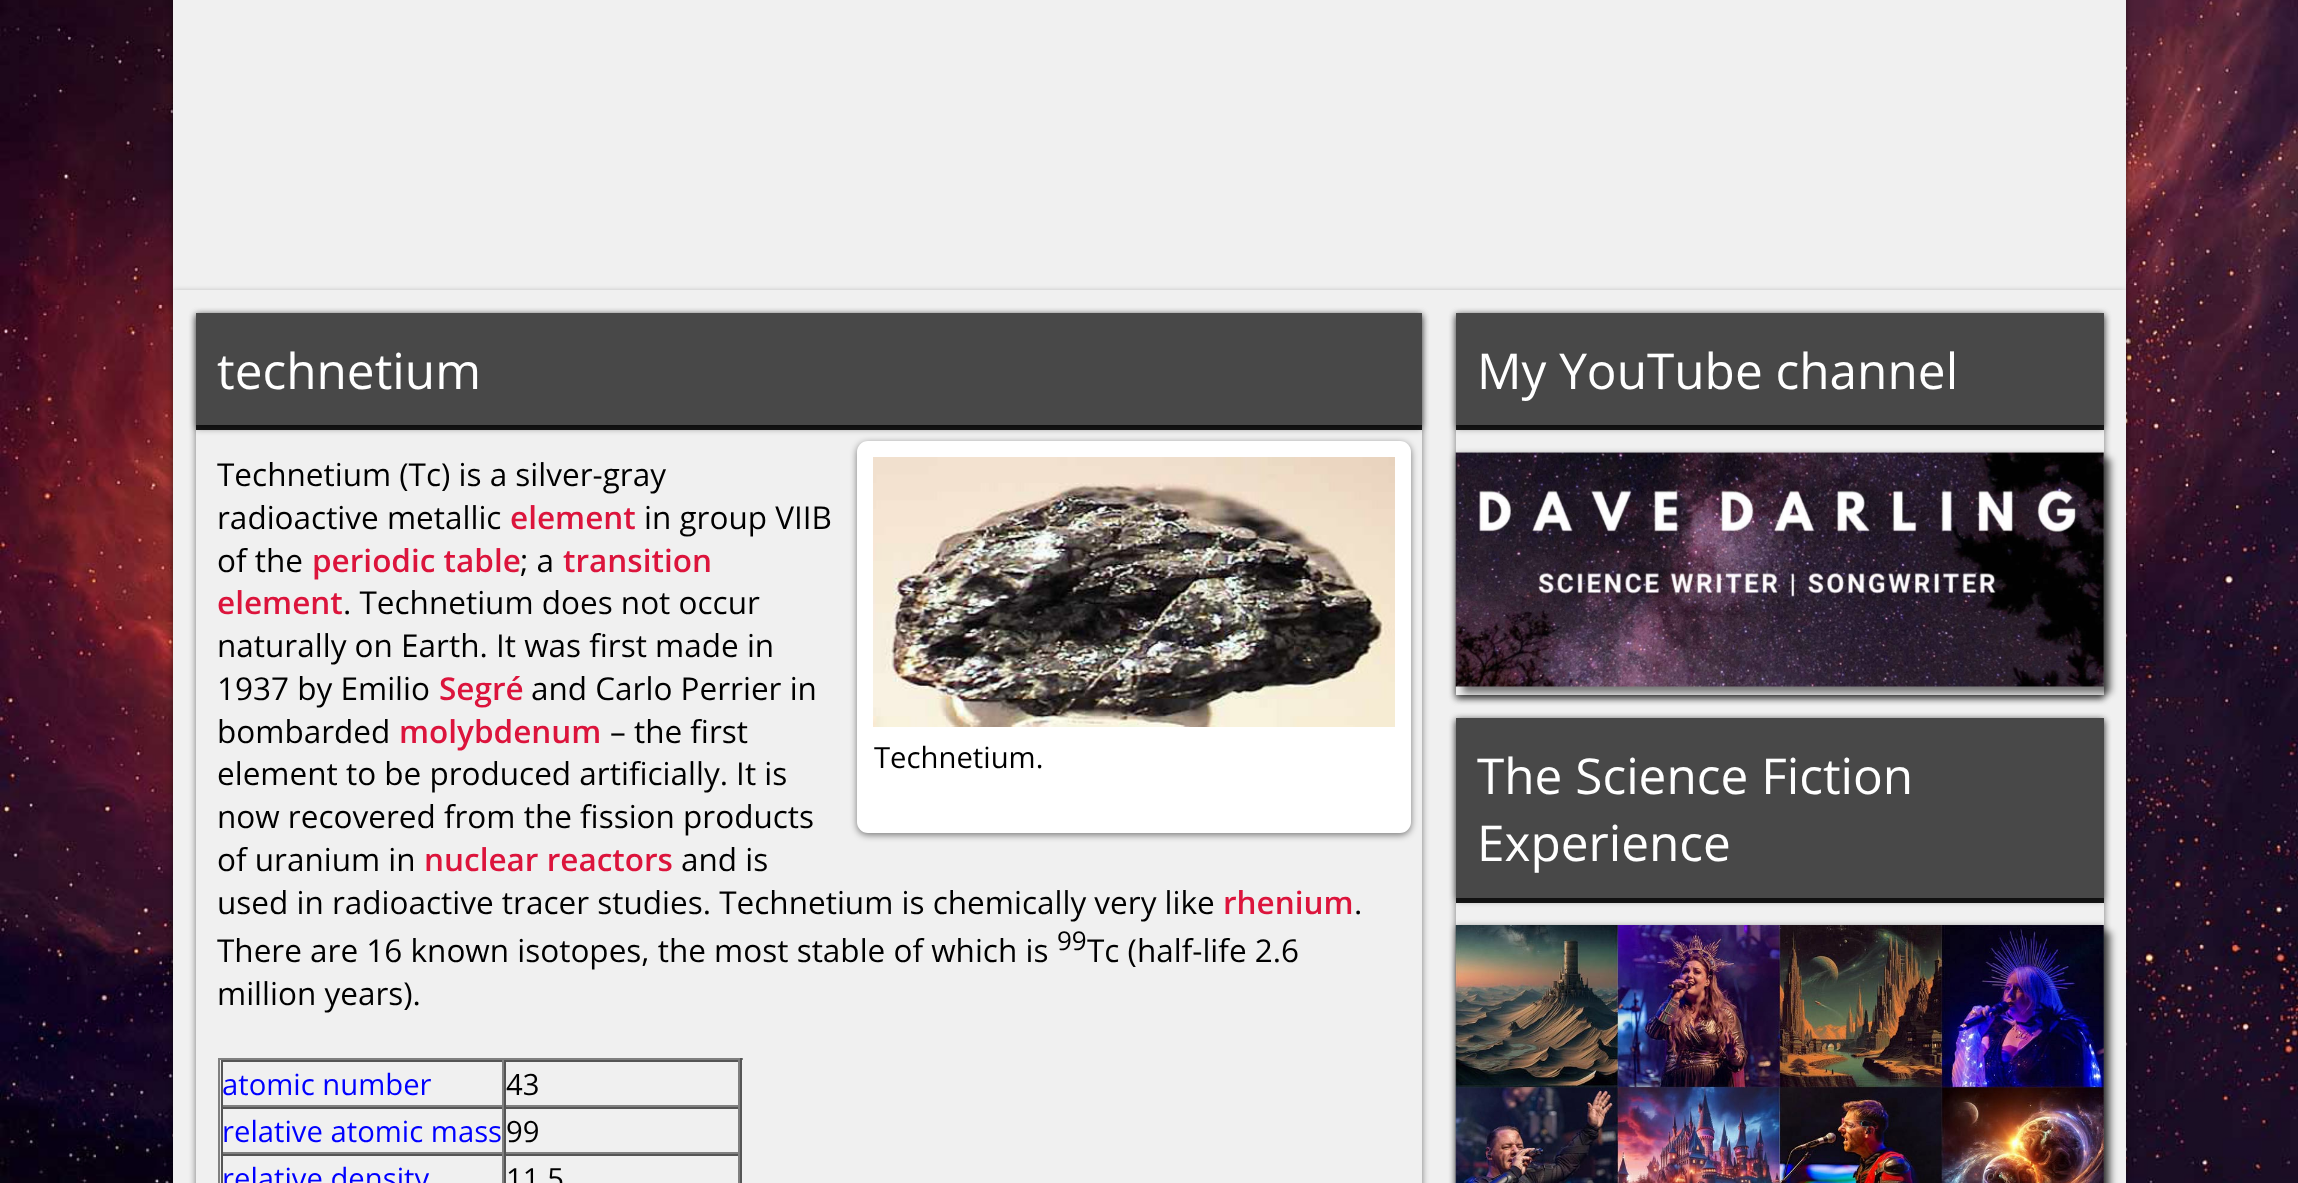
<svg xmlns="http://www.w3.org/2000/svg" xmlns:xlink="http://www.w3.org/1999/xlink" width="2298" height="1183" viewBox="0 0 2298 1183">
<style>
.cls-1{font:49.5px Open Sans;fill:#ffffff}
.cls-2{font:31.5px Open Sans;fill:#000000}
.cls-3{font:600 31.5px Open Sans;fill:#dc143c}
.cls-4{font:26px Open Sans;fill:#000000}
.cls-5{font:29.25px Open Sans;fill:#0000ff}
.cls-6{font:29.25px Open Sans;fill:#000000}
</style>
<defs>
<clipPath id="clip1"><path d="M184 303H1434V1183H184ZM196 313H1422V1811H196Z" clip-rule="evenodd"/></clipPath>
<clipPath id="clip2"><path d="M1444 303H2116V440H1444ZM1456 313H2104V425H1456Z" clip-rule="evenodd"/></clipPath>
<clipPath id="clip3"><path d="M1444 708H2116V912H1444ZM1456 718H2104V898H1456Z" clip-rule="evenodd"/></clipPath>
</defs>
<rect width="100%" height="100%" fill="#ffffff"/>
<image xlink:href="image0.png" x="0" y="0" width="2298" height="1183"/>
<rect fill="#000000" fill-opacity="0.5" filter="blur(3.5px)" x="173" y="-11" width="1953" height="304"/>
<rect fill="#f0f0f0" x="173" y="0" width="1953" height="290"/>
<rect fill="#000000" fill-opacity="0.5" filter="blur(3.5px)" x="173" y="293" width="1953" height="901"/>
<rect fill="#f0f0f0" x="173" y="290" width="1953" height="893"/>
<g clip-path="url(#clip1)">
<rect fill="#000000" fill-opacity="0.5" filter="blur(3.5px)" x="196" y="315" width="1226" height="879"/>
</g>
<rect fill="#181818" x="196" y="425" width="1226" height="5"/>
<rect fill="#000000" fill-opacity="0.5" filter="blur(3.5px)" x="196" y="315" width="1226" height="113"/>
<rect fill="#484848" x="196" y="313" width="1226" height="112"/>
<rect fill="#808080" x="218" y="1058" width="525" height="2"/>
<rect fill="#555555" x="740" y="1058" width="2" height="125"/>
<rect fill="#808080" x="218" y="1058" width="2" height="125"/>
<rect fill="#555555" x="221" y="1060" width="519" height="2"/>
<rect fill="#808080" x="502" y="1060" width="2" height="47"/>
<rect fill="#808080" x="221" y="1105" width="283" height="2"/>
<rect fill="#555555" x="221" y="1060" width="2" height="47"/>
<rect fill="#808080" x="738" y="1060" width="2" height="47"/>
<rect fill="#808080" x="504" y="1105" width="236" height="2"/>
<rect fill="#555555" x="504" y="1060" width="2" height="47"/>
<rect fill="#555555" x="221" y="1107" width="519" height="2"/>
<rect fill="#808080" x="502" y="1107" width="2" height="47"/>
<rect fill="#808080" x="221" y="1152" width="283" height="2"/>
<rect fill="#555555" x="221" y="1107" width="2" height="47"/>
<rect fill="#808080" x="738" y="1107" width="2" height="47"/>
<rect fill="#808080" x="504" y="1152" width="236" height="2"/>
<rect fill="#555555" x="504" y="1107" width="2" height="47"/>
<rect fill="#555555" x="221" y="1154" width="519" height="2"/>
<rect fill="#808080" x="502" y="1154" width="2" height="29"/>
<rect fill="#555555" x="221" y="1154" width="2" height="29"/>
<rect fill="#808080" x="738" y="1154" width="2" height="29"/>
<rect fill="#555555" x="504" y="1154" width="2" height="29"/>
<rect fill="#000000" fill-opacity="0.5" filter="blur(3.5px)" x="857" y="443" width="554" height="392" rx="11"/>
<rect fill="#ffffff" x="857" y="441" width="554" height="392" rx="11"/>
<image xlink:href="image1.png" x="873" y="457" width="522" height="270"/>
<rect fill="#000000" fill-opacity="0.5" filter="blur(3.5px)" x="1456" y="315" width="648" height="383"/>
<rect fill="#f0f0f0" x="1456" y="313" width="648" height="139"/>
<rect fill="#181818" x="1456" y="425" width="648" height="5"/>
<g clip-path="url(#clip2)">
<rect fill="#000000" fill-opacity="0.5" filter="blur(3.5px)" x="1456" y="315" width="648" height="113"/>
</g>
<rect fill="#000000" fill-opacity="0.7" x="1456" y="313" width="648" height="112"/>
<rect fill="#000000" fill-opacity="0.5" filter="blur(3.5px)" x="1456" y="455" width="648" height="243"/>
<rect fill="#f0f0f0" x="1456" y="452" width="648" height="243"/>
<rect fill="#000000" fill-opacity="0.5" filter="blur(3.5px)" x="1463" y="459" width="648" height="234"/>
<image xlink:href="image2.png" x="1455" y="452" width="649" height="235"/>
<rect fill="#000000" fill-opacity="0.5" filter="blur(3.5px)" x="1456" y="720" width="648" height="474"/>
<rect fill="#f0f0f0" x="1456" y="718" width="648" height="465"/>
<rect fill="#181818" x="1456" y="898" width="648" height="5"/>
<g clip-path="url(#clip3)">
<rect fill="#000000" fill-opacity="0.5" filter="blur(3.5px)" x="1456" y="720" width="648" height="180"/>
</g>
<rect fill="#000000" fill-opacity="0.7" x="1456" y="718" width="648" height="180"/>
<rect fill="#000000" fill-opacity="0.5" filter="blur(3.5px)" x="1456" y="927" width="648" height="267"/>
<rect fill="#000000" fill-opacity="0.5" filter="blur(3.5px)" x="1463" y="932" width="648" height="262"/>
<image xlink:href="image3.png" x="1455" y="925" width="649" height="258"/>
<text class="cls-1" x="217" y="389">technetium</text>
<text class="cls-2"><tspan x="217" y="486">Technetium (Tc) is a silver-gray</tspan><tspan x="217" y="529">radioactive metallic</tspan></text>
<text class="cls-3" x="510" y="529">element</text>
<text class="cls-2" x="644" y="529">in group VIIB</text>
<text class="cls-2" x="217" y="572">of the</text>
<text class="cls-3" x="312" y="572">periodic table</text>
<text class="cls-2" x="520" y="572">; a</text>
<text class="cls-3" x="563" y="572">transition</text>
<text class="cls-3" x="217" y="614">element</text>
<text class="cls-2" x="343" y="614">. Technetium does not occur</text>
<text class="cls-2"><tspan x="217" y="657">naturally on Earth. It was first made in</tspan><tspan x="217" y="700">1937 by Emilio</tspan></text>
<text class="cls-3" x="439" y="700">Segré</text>
<text class="cls-2" x="531" y="700">and Carlo Perrier in</text>
<text class="cls-2" x="217" y="743">bombarded</text>
<text class="cls-3" x="399" y="743">molybdenum</text>
<text class="cls-2" x="610" y="743">– the first</text>
<text class="cls-2"><tspan x="217" y="785">element to be produced artificially. It is</tspan><tspan x="217" y="828">now recovered from the fission products</tspan><tspan x="217" y="871">of uranium in</tspan></text>
<text class="cls-3" x="424" y="871">nuclear reactors</text>
<text class="cls-2" x="681" y="871">and is</text>
<text class="cls-2" x="217" y="914">used in radioactive tracer studies. Technetium is chemically very like</text>
<text class="cls-3" x="1223" y="914">rhenium</text>
<text class="cls-2" x="1354" y="914">.</text>
<text class="cls-2" x="217" y="962">There are 16 known isotopes, the most stable of which is</text>
<text class="cls-4" x="1057" y="950">99</text>
<text class="cls-2" x="1087" y="962">Tc (half-life 2.6</text>
<text class="cls-2" x="217" y="1005">million years).</text>
<text class="cls-5" x="222" y="1095">atomic number</text>
<text class="cls-6" x="506" y="1095">43</text>
<text class="cls-5" x="222" y="1142">relative atomic mass</text>
<text class="cls-6" x="506" y="1142">99</text>
<text class="cls-5" x="222" y="1189">relative density</text>
<text class="cls-6" x="506" y="1189">11.5</text>
<text class="cls-6" x="874" y="768">Technetium.</text>
<text class="cls-1" x="1477" y="389">My YouTube channel</text>
<text class="cls-1"><tspan x="1477" y="794">The Science Fiction</tspan><tspan x="1477" y="861">Experience</tspan></text>
</svg>
